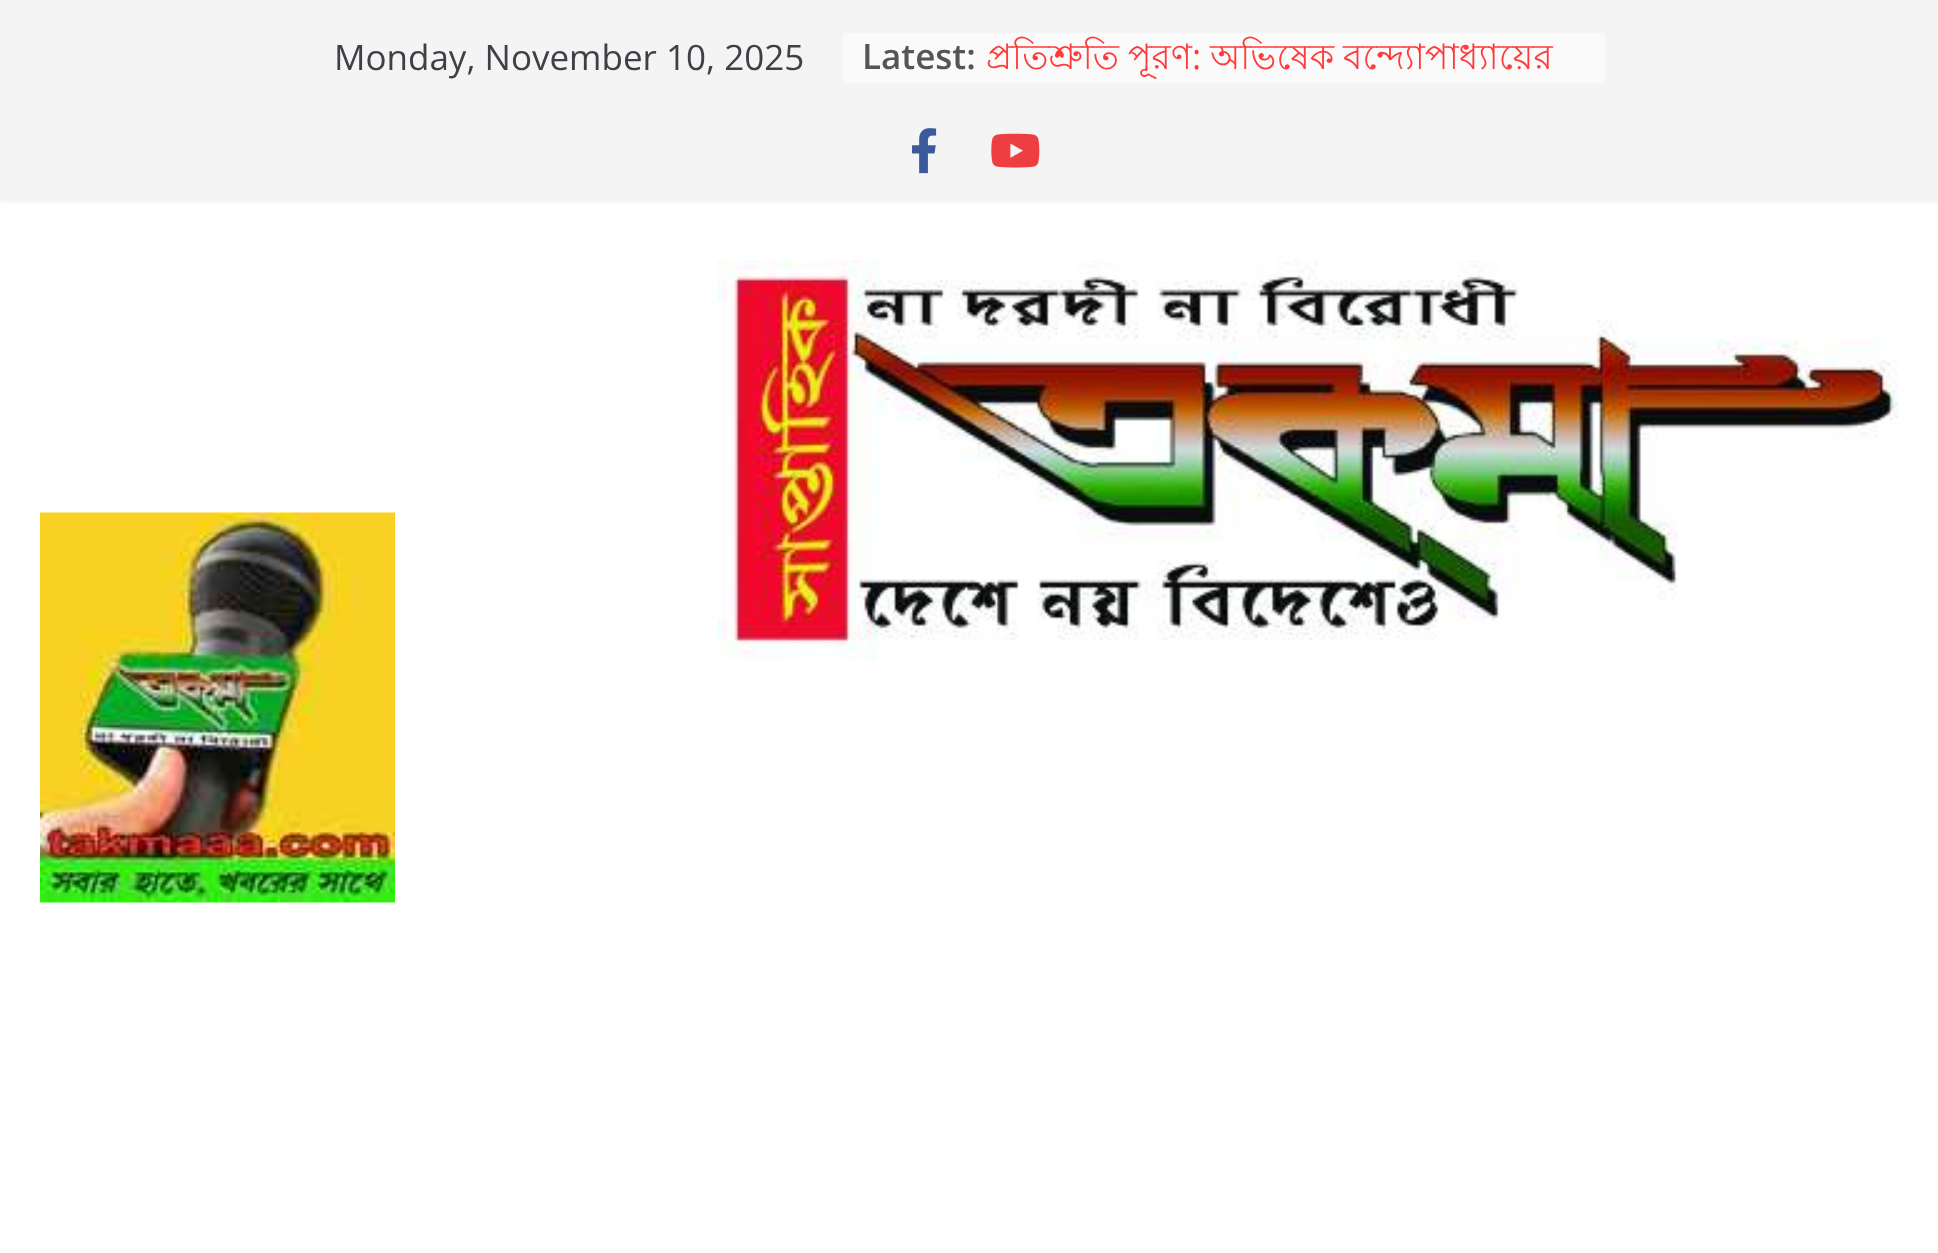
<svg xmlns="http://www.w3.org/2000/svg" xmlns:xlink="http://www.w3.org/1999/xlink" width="1938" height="1253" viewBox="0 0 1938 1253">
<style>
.cls-1{font:35px Open Sans;fill:#3f3f46}
.cls-2{font:600 35px Open Sans;fill:#555555}
.cls-3{font:35px Lohit Bengali;fill:#ff3a3a}
.cls-4{font:35px Open Sans;fill:#ff3a3a}
</style>
<rect width="100%" height="100%" fill="#ffffff"/>
<rect fill="#000000" fill-opacity="0.1" filter="blur(2.5px)" x="0" y="0" width="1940" height="200"/>
<rect fill="#f4f4f5" x="0" y="0" width="1938" height="200"/>
<rect fill="#fafafa" x="843" y="33" width="762" height="50"/>
<image xlink:href="image0.png" x="912" y="128" width="25" height="46"/>
<image xlink:href="image1.png" x="991" y="133" width="49" height="35"/>
<image xlink:href="image2.png" x="717" y="260" width="1182" height="400"/>
<image xlink:href="image3.png" x="40" y="512" width="355" height="391"/>
<text class="cls-1" x="334" y="70">Monday, November 10, 2025</text>
<text class="cls-2" x="862" y="69">Latest:</text>
<text class="cls-3" x="986" y="69" word-spacing="-1">প্রতিশ্রুতি পূরণ</text>
<text class="cls-4" x="1192" y="69">:</text>
<text class="cls-3" x="1210" y="69" word-spacing="-1">অভিষেক বন্দ্যোপাধ্যায়ের</text>
</svg>
